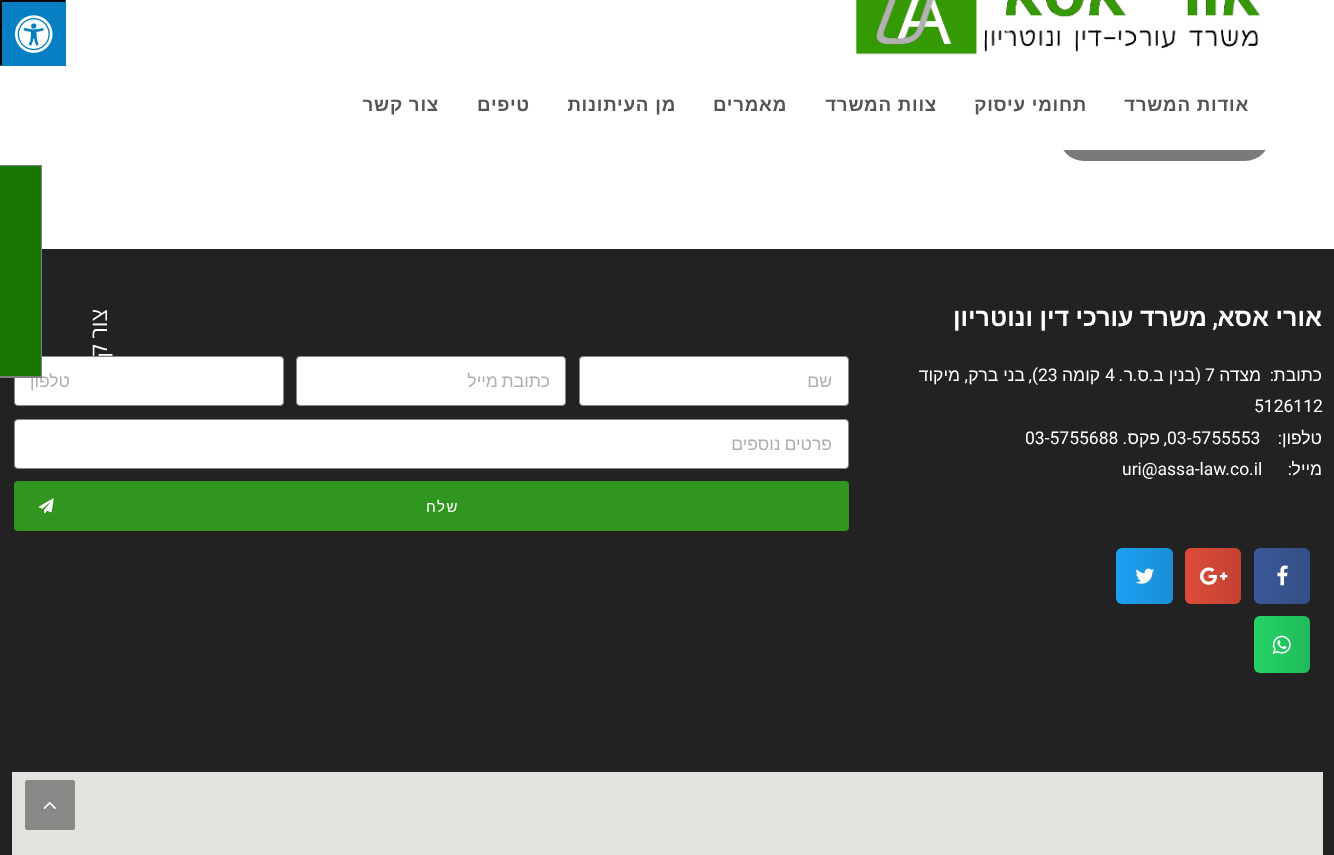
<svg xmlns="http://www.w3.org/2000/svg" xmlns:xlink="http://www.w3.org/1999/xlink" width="1334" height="855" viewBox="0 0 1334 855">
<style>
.cls-1{font:bold 18.75px Liberation Sans;letter-spacing:0.75px;direction:rtl;fill:#555555}
.cls-2{font:bold 25px Liberation Sans;direction:rtl;fill:#ffffff}
.cls-3{font:600 25px Roboto;direction:rtl;fill:#ffffff}
.cls-4{font:17.5px Liberation Sans;direction:rtl;fill:#ffffff}
.cls-5{font:17.5px Roboto;direction:rtl;fill:#ffffff}
.cls-6{font:17.5px Roboto;fill:#ffffff}
.cls-7{font:17.5px Liberation Sans;direction:rtl;fill:#afafaf}
.cls-8{font:15px Liberation Sans;letter-spacing:1.5px;direction:rtl;fill:#ffffff}
.cls-9{font:22.5px Open Sans;direction:rtl;fill:#ffffff}
</style>
<defs>
<linearGradient id="g1" gradientUnits="userSpaceOnUse" x1="1310" y1="576" x2="1254" y2="576"><stop offset="0" stop-color="#000000" stop-opacity="0.12"/><stop offset="1" stop-color="#000000" stop-opacity="0"/></linearGradient>
<linearGradient id="g2" gradientUnits="userSpaceOnUse" x1="1241" y1="576" x2="1185" y2="576"><stop offset="0" stop-color="#000000" stop-opacity="0.12"/><stop offset="1" stop-color="#000000" stop-opacity="0"/></linearGradient>
<linearGradient id="g3" gradientUnits="userSpaceOnUse" x1="1173" y1="576" x2="1116" y2="576"><stop offset="0" stop-color="#000000" stop-opacity="0.12"/><stop offset="1" stop-color="#000000" stop-opacity="0"/></linearGradient>
<linearGradient id="g4" gradientUnits="userSpaceOnUse" x1="1310" y1="644" x2="1254" y2="644"><stop offset="0" stop-color="#000000" stop-opacity="0.12"/><stop offset="1" stop-color="#000000" stop-opacity="0"/></linearGradient>
</defs>
<rect width="100%" height="100%" fill="#ffffff"/>
<rect fill="#0780c3" x="0" y="0" width="66" height="66"/>
<path fill="#000000" d="M0 0H66L65 2H2Z"/>
<path fill="#0780c3" d="M66 0V66L65 65V2Z"/>
<path fill="#000000" d="M0 66V0L2 2V65Z"/>
<image xlink:href="image0.png" x="15" y="15" width="38" height="38"/>
<rect fill="#7a7a7a" x="1059" y="111" width="211" height="50" rx="25"/>
<rect fill="#ffffff" x="1059" y="111" width="211" height="39"/>
<image xlink:href="image1.png" x="856" y="0" width="404" height="55"/>
<rect fill="#222222" x="0" y="249" width="1334" height="606"/>
<rect fill="#3b5998" x="1254" y="548" width="56" height="56" rx="6"/>
<rect fill="url(#g1)" x="1254" y="548" width="56" height="56" rx="6"/>
<image xlink:href="image2.png" x="1277" y="565" width="11" height="21"/>
<rect fill="#dd4b39" x="1185" y="548" width="56" height="56" rx="6"/>
<rect fill="url(#g2)" x="1185" y="548" width="56" height="56" rx="6"/>
<image xlink:href="image3.png" x="1200" y="567" width="28" height="18"/>
<rect fill="#1da1f2" x="1116" y="548" width="57" height="56" rx="6"/>
<rect fill="url(#g3)" x="1116" y="548" width="57" height="56" rx="6"/>
<image xlink:href="image4.png" x="1135" y="568" width="19" height="16"/>
<rect fill="#25d366" x="1254" y="616" width="56" height="57" rx="6"/>
<rect fill="url(#g4)" x="1254" y="616" width="56" height="57" rx="6"/>
<image xlink:href="image5.png" x="1272" y="635" width="19" height="19"/>
<rect fill="#ffffff" stroke="#818a91" x="579.5" y="356.5" width="269" height="49" rx="3.5"/>
<rect fill="#ffffff" stroke="#818a91" x="296.5" y="356.5" width="269" height="49" rx="3.5"/>
<rect fill="#ffffff" stroke="#818a91" x="14.5" y="356.5" width="269" height="49" rx="3.5"/>
<rect fill="#ffffff" stroke="#818a91" x="14.5" y="419.5" width="834" height="49" rx="3.5"/>
<rect fill="#31961f" x="14" y="481" width="835" height="50" rx="4"/>
<image xlink:href="image6.png" x="38" y="498" width="16" height="16"/>
<rect fill="#e5e3df" x="12" y="772" width="1311" height="83"/>
<rect fill="#7f7f7f" x="0" y="165" width="42" height="1"/>
<rect fill="#898886" x="25" y="780" width="50" height="50" rx="2.5"/>
<image xlink:href="image7.png" x="43" y="801" width="13" height="9"/>
<text class="cls-1" x="1249" y="111">אודות המשרד</text>
<text class="cls-1" x="1087" y="111">תחומי עיסוק</text>
<text class="cls-1" x="937" y="111">צוות המשרד</text>
<text class="cls-1" x="787" y="111">מאמרים</text>
<text class="cls-1" x="676" y="111">מן העיתונות</text>
<text class="cls-1" x="530" y="111">טיפים</text>
<text class="cls-1" x="439" y="111">צור קשר</text>
<text class="cls-2" x="1322" y="326" word-spacing="-0.5">אורי אסא</text>
<text class="cls-3" x="1218" y="326">,</text>
<text class="cls-2" x="1207" y="326" word-spacing="-0.5">משרד עורכי דין ונוטריון</text>
<text class="cls-4" x="1322" y="381">כתובת</text>
<text class="cls-5" x="1274" y="381">:</text>
<text class="cls-4" x="1261" y="381">מצדה</text>
<text class="cls-6" x="1205" y="381">7</text>
<text class="cls-5" x="1201" y="381">(</text>
<text class="cls-4" x="1195" y="381">בנין ב</text>
<text class="cls-5" x="1153" y="381">.</text>
<text class="cls-4" x="1149" y="381">ס</text>
<text class="cls-5" x="1137" y="381">.</text>
<text class="cls-4" x="1133" y="381">ר</text>
<text class="cls-5" x="1123" y="381">.</text>
<text class="cls-6" x="1105" y="381">4</text>
<text class="cls-4" x="1100" y="381">קומה</text>
<text class="cls-6" x="1038" y="381">23</text>
<text class="cls-5" x="1038" y="381">),</text>
<text class="cls-4" x="1025" y="381">בני ברק</text>
<text class="cls-5" x="968" y="381">,</text>
<text class="cls-4" x="960" y="381">מיקוד</text>
<text class="cls-6" x="1254" y="412">5126112</text>
<text class="cls-4" x="1322" y="444">טלפון</text>
<text class="cls-5" x="1282" y="444">:</text>
<text class="cls-6" x="1167" y="444">03-5755553</text>
<text class="cls-5" x="1167" y="444">,</text>
<text class="cls-4" x="1160" y="444">פקס</text>
<text class="cls-5" x="1127" y="444">.</text>
<text class="cls-6" x="1025" y="444">03-5755688</text>
<text class="cls-4" x="1322" y="475">מייל</text>
<text class="cls-5" x="1292" y="475">:</text>
<text class="cls-6" x="1122" y="475">uri@assa-law.co.il</text>
<text class="cls-7" x="832" y="387">שם</text>
<text class="cls-7" x="550" y="387" word-spacing="-1">כתובת מייל</text>
<text class="cls-7" x="70" y="387">טלפון</text>
<text class="cls-7" x="832" y="450" word-spacing="-1">פרטים נוספים</text>
<text class="cls-8" x="459" y="512">שלח</text>
<rect fill="#197700" x="0" y="166" width="41" height="210"/>
<rect fill="#7f7f7f" x="41" y="165" width="1" height="213"/>
<rect fill="#7f7f7f" x="0" y="376" width="42" height="2"/>
<text class="cls-9" x="107" y="309" transform="rotate(-90 107 309)">צור קשר</text>
</svg>
